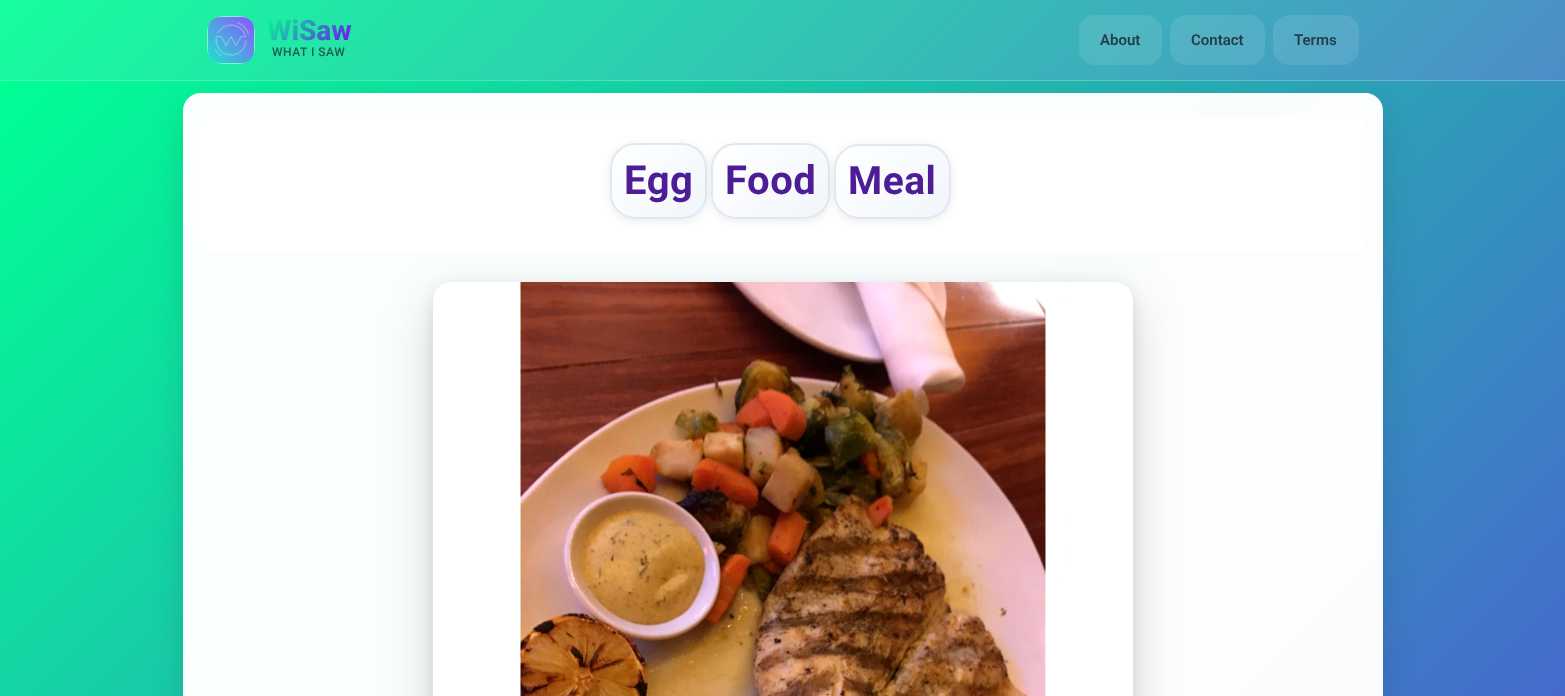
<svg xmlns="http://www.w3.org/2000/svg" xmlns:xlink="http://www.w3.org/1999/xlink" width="1565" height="696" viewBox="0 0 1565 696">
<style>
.cls-1{font:800 28px Roboto;fill:url(#g11)}
.cls-2{font:500 12px Roboto;letter-spacing:0.5px;fill:#1d5b51}
.cls-3{font:600 15px Roboto;fill:#253e4a}
.cls-4{font:bold 40px Roboto;letter-spacing:0.5px;fill:#4c1d95}
.cls-5{font:bold 39px 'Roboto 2';letter-spacing:0.5px;fill:#4c1d95}
</style>
<defs>
<linearGradient id="g1" gradientUnits="userSpaceOnUse" x1="-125" y1="125" x2="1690" y2="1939"><stop offset="0" stop-color="#00ff94"/><stop offset="1" stop-color="#720cf0"/></linearGradient>
<linearGradient id="g2" gradientUnits="userSpaceOnUse" x1="-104" y1="185" x2="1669" y2="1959"><stop offset="0" stop-color="#00ff94"/><stop offset="1" stop-color="#720cf0"/></linearGradient>
<clipPath id="clip1"><path d="M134 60H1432V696H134ZM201 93H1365C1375 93 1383 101 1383 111V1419C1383 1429 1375 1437 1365 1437H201C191 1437 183 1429 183 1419V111C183 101 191 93 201 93Z" clip-rule="evenodd"/></clipPath>
<linearGradient id="g3" gradientUnits="userSpaceOnUse" x1="371" y1="-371" x2="1194" y2="451"><stop offset="0" stop-color="#00ff94" stop-opacity="0.1"/><stop offset="1" stop-color="#720cf0" stop-opacity="0.1"/></linearGradient>
<clipPath id="clip2"><path d="M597 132H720V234H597ZM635 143H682C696 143 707 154 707 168V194C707 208 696 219 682 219H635C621 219 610 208 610 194V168C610 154 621 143 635 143Z" clip-rule="evenodd"/></clipPath>
<clipPath id="clip3"><rect x="610" y="143" width="97" height="76" rx="25"/></clipPath>
<linearGradient id="g4" gradientUnits="userSpaceOnUse" x1="617" y1="140" x2="700" y2="222"><stop offset="0" stop-color="#ffffff" stop-opacity="0.9"/><stop offset="1" stop-color="#f0f5fb" stop-opacity="0.95"/></linearGradient>
<clipPath id="clip4"><path d="M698 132H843V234H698ZM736 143H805C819 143 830 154 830 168V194C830 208 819 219 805 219H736C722 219 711 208 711 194V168C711 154 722 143 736 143Z" clip-rule="evenodd"/></clipPath>
<clipPath id="clip5"><rect x="711" y="143" width="119" height="76" rx="25"/></clipPath>
<linearGradient id="g5" gradientUnits="userSpaceOnUse" x1="724" y1="134" x2="817" y2="228"><stop offset="0" stop-color="#ffffff" stop-opacity="0.9"/><stop offset="1" stop-color="#f0f5fb" stop-opacity="0.95"/></linearGradient>
<clipPath id="clip6"><path d="M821 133H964V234H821ZM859 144H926C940 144 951 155 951 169V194C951 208 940 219 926 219H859C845 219 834 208 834 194V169C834 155 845 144 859 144Z" clip-rule="evenodd"/></clipPath>
<clipPath id="clip7"><rect x="834" y="144" width="117" height="75" rx="25"/></clipPath>
<linearGradient id="g6" gradientUnits="userSpaceOnUse" x1="847" y1="65" x2="939" y2="157"><stop offset="0" stop-color="#ffffff" stop-opacity="0.9"/><stop offset="1" stop-color="#f0f5fb" stop-opacity="0.95"/></linearGradient>
<linearGradient id="g7" gradientUnits="userSpaceOnUse" x1="734" y1="136" x2="826" y2="228"><stop offset="0" stop-color="#ffffff" stop-opacity="0.9"/><stop offset="1" stop-color="#f0f5fb" stop-opacity="0.95"/></linearGradient>
<linearGradient id="g8" gradientUnits="userSpaceOnUse" x1="847" y1="136" x2="939" y2="228"><stop offset="0" stop-color="#ffffff" stop-opacity="0.9"/><stop offset="1" stop-color="#f0f5fb" stop-opacity="0.95"/></linearGradient>
<linearGradient id="g9" gradientUnits="userSpaceOnUse" x1="960" y1="136" x2="1052" y2="228"><stop offset="0" stop-color="#ffffff" stop-opacity="0.9"/><stop offset="1" stop-color="#f0f5fb" stop-opacity="0.95"/></linearGradient>
<linearGradient id="g10" gradientUnits="userSpaceOnUse" x1="847" y1="207" x2="939" y2="299"><stop offset="0" stop-color="#ffffff" stop-opacity="0.9"/><stop offset="1" stop-color="#f0f5fb" stop-opacity="0.95"/></linearGradient>
<linearGradient id="g11" gradientUnits="userSpaceOnUse" x1="281" y1="3.2" x2="337" y2="60"><stop offset="0" stop-color="#00ff94"/><stop offset="1" stop-color="#720cf0"/></linearGradient>
</defs>
<rect width="100%" height="100%" fill="#ffffff"/>
<rect fill="url(#g1)" x="0" y="0" width="1565" height="81"/>
<rect fill="url(#g2)" x="0" y="81" width="1565" height="615"/>
<g clip-path="url(#clip1)">
<rect fill="#000000" fill-opacity="0.12" filter="blur(16px)" x="183" y="109" width="1200" height="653" rx="18"/>
</g>
<rect fill="#ffffff" fill-opacity="0.1" x="0" y="0" width="1565" height="81"/>
<rect fill="#ffffff" fill-opacity="0.2" x="0" y="80" width="1565" height="1"/>
<rect fill="url(#g3)" x="0" y="0" width="1565" height="80"/>
<rect fill="#ffffff" fill-opacity="0.2" x="207" y="16" width="48" height="48" rx="16"/>
<rect fill="none" stroke="#ffffff" stroke-opacity="0.3" x="207.5" y="16.5" width="47" height="47" rx="15.5"/>
<image xlink:href="image0.png" x="208" y="17" width="46" height="46"/>
<rect fill="#ffffff" fill-opacity="0.1" x="1079" y="15" width="83" height="50" rx="16"/>
<rect fill="#ffffff" fill-opacity="0.1" x="1170" y="15" width="95" height="50" rx="16"/>
<rect fill="#ffffff" fill-opacity="0.1" x="1273" y="15" width="86" height="50" rx="16"/>
<rect fill="#ffffff" fill-opacity="0.98" x="183" y="93" width="1200" height="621" rx="18"/>
<rect fill="none" stroke="#ffffff" stroke-opacity="0.4" x="183.5" y="93.5" width="1199" height="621" rx="17.5"/>
<rect fill="#ffffff" x="200" y="118" width="1166" height="134" rx="12"/>
<g clip-path="url(#clip2)">
<rect fill="#000000" fill-opacity="0.08" filter="blur(4px)" x="610" y="145" width="97" height="76" rx="25"/>
</g>
<g clip-path="url(#clip3)">
<rect fill="url(#g4)" x="612" y="145" width="93" height="72"/>
</g>
<rect fill="none" stroke="#e2e8f0" stroke-width="2" x="611" y="144" width="95" height="74" rx="24"/>
<g clip-path="url(#clip4)">
<rect fill="#000000" fill-opacity="0.08" filter="blur(4px)" x="711" y="145" width="119" height="76" rx="25"/>
</g>
<g clip-path="url(#clip5)">
<rect fill="url(#g5)" x="713" y="145" width="115" height="72"/>
</g>
<rect fill="none" stroke="#e2e8f0" stroke-width="2" x="712" y="144" width="117" height="74" rx="24"/>
<g clip-path="url(#clip6)">
<rect fill="#000000" fill-opacity="0.08" filter="blur(4px)" x="834" y="146" width="117" height="75" rx="25"/>
</g>
<g clip-path="url(#clip7)">
<rect fill="url(#g6)" x="849" y="144" width="87" height="2"/>
<rect fill="url(#g7)" x="834" y="159" width="2" height="45"/>
<rect fill="url(#g8)" x="836" y="146" width="113" height="71"/>
<rect fill="url(#g9)" x="949" y="159" width="2" height="45"/>
<rect fill="url(#g10)" x="849" y="217" width="87" height="2"/>
</g>
<rect fill="none" stroke="#e2e8f0" stroke-opacity="0.98" stroke-width="2" x="835" y="145" width="115" height="73" rx="24"/>
<rect fill="#000000" fill-opacity="0.1" filter="blur(7.5px)" x="433" y="287" width="700" height="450" rx="18"/>
<rect fill="#000000" fill-opacity="0.15" filter="blur(25px)" x="433" y="302" width="700" height="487" rx="18"/>
<image xlink:href="image1.png" x="433" y="282" width="700" height="414"/>
<image xlink:href="image2.png" x="508" y="282" width="555" height="414"/>
<text class="cls-1" x="267" y="40">WiSaw</text>
<text class="cls-2" x="272" y="56">WHAT I SAW</text>
<text class="cls-3" x="1100" y="45">About</text>
<text class="cls-3" x="1191" y="45">Contact</text>
<text class="cls-3" x="1294" y="45">Terms</text>
<text class="cls-4" x="624" y="194">Egg</text>
<text class="cls-4" x="725" y="194">Food</text>
<text class="cls-5" x="848" y="194">Meal</text>
</svg>
